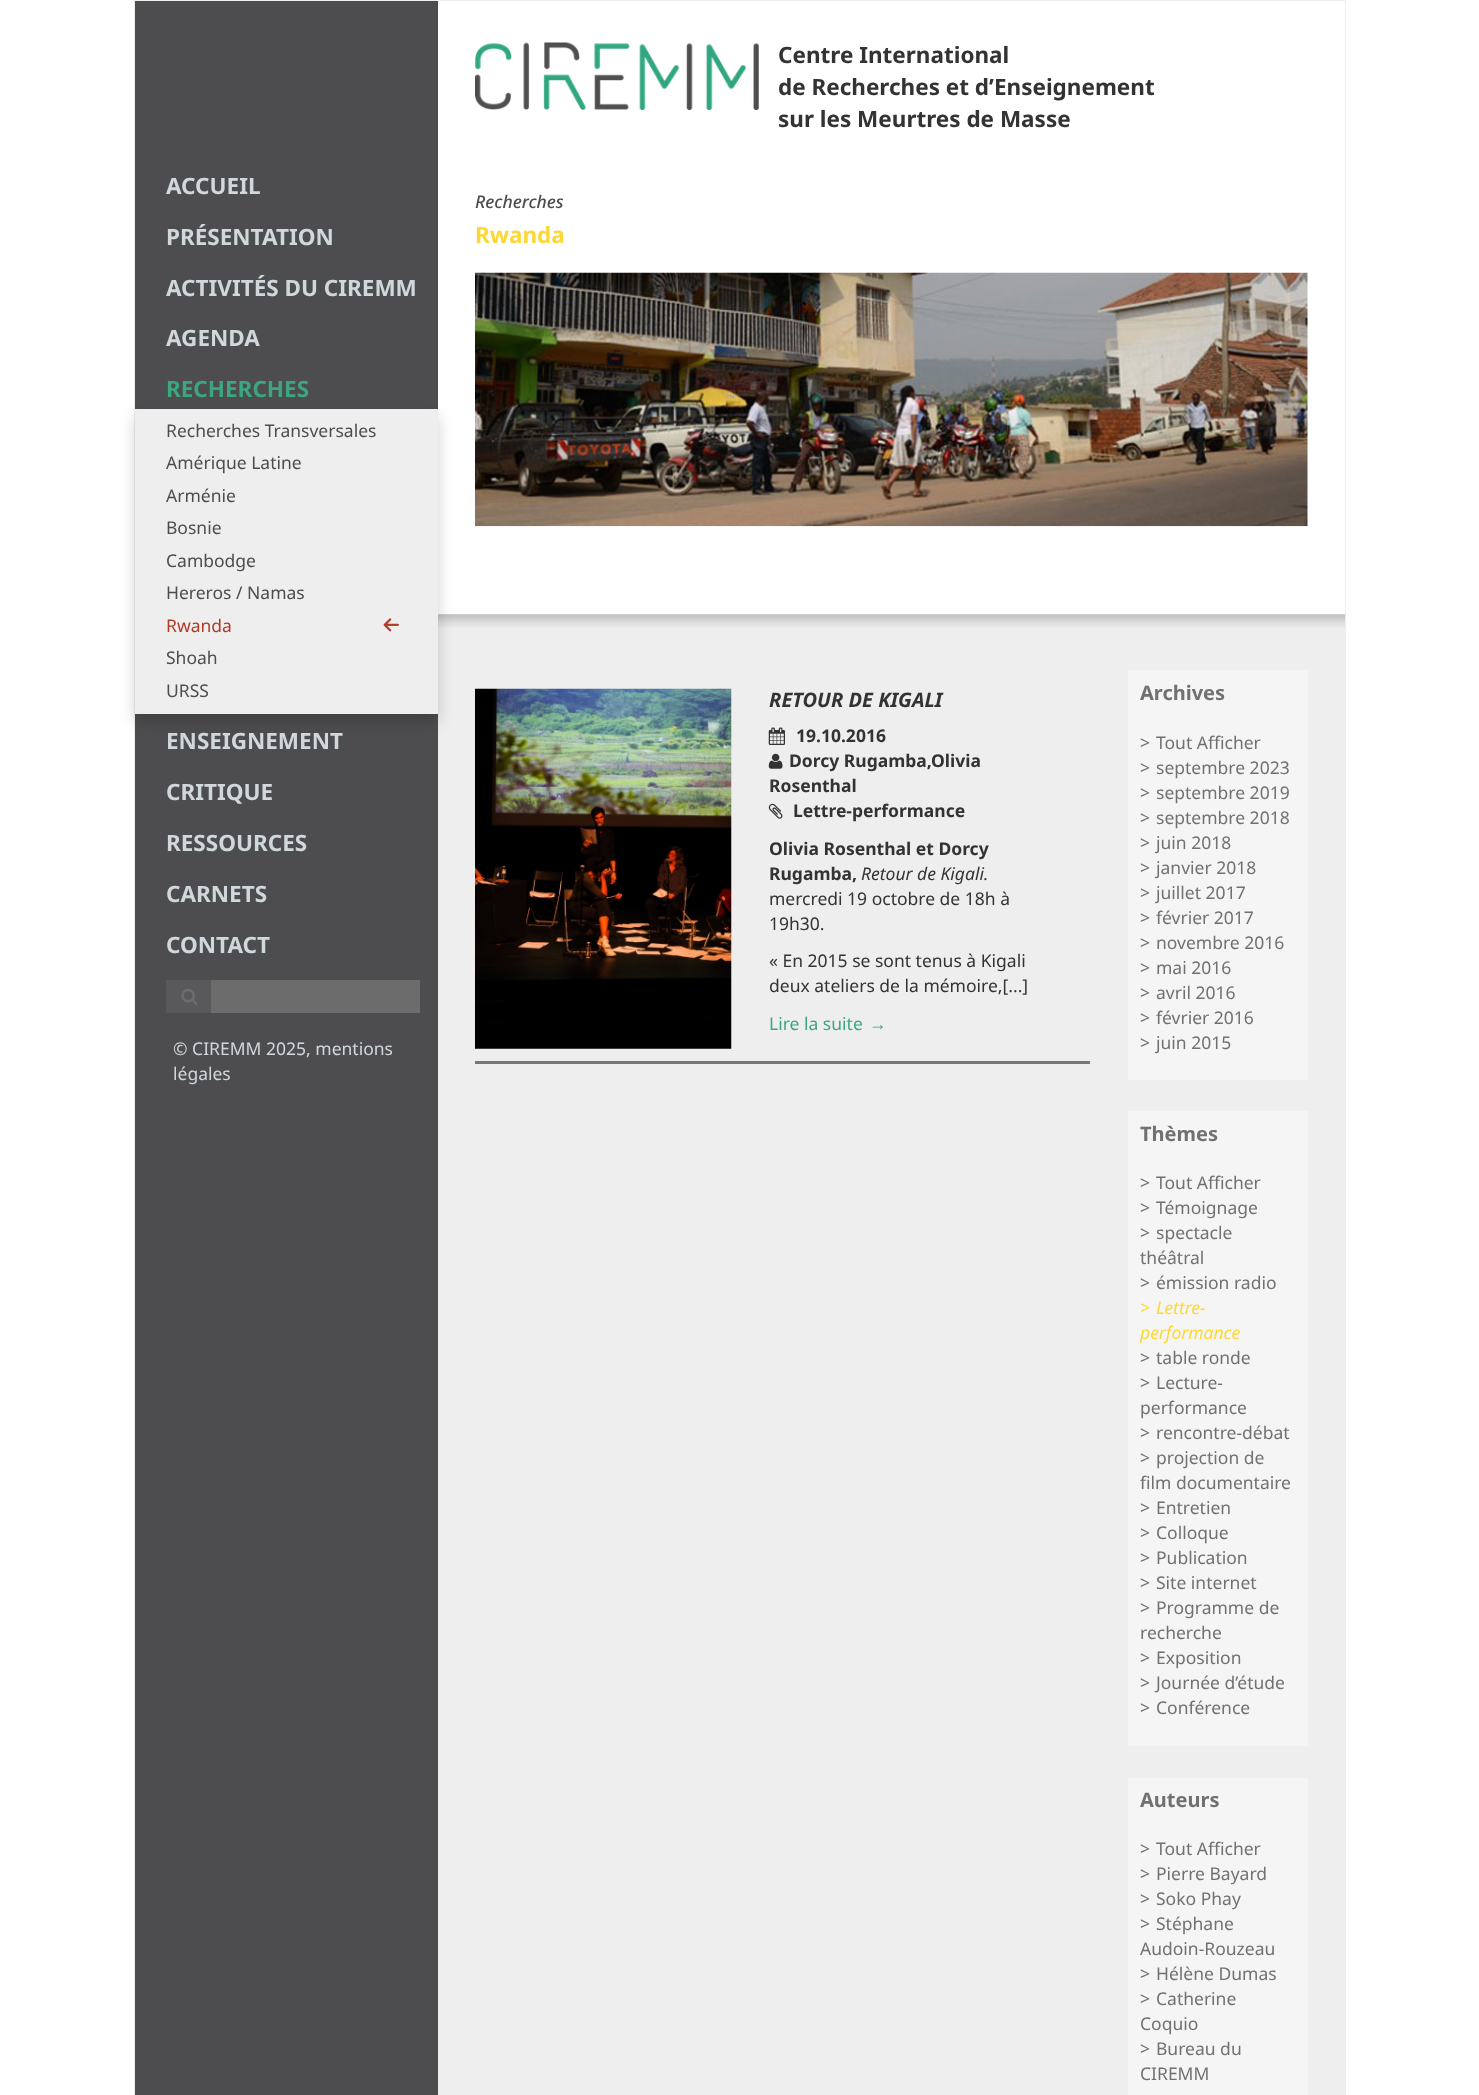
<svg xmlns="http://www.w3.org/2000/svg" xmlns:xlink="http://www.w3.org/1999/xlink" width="1479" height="2095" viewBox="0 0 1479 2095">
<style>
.cls-1{font:bold 22.5px Noto Sans;fill:#d0d8dc}
.cls-2{font:bold 22.5px Noto Sans;fill:#3ba77f}
.cls-3{font:17.5px Noto Sans;fill:#4d4d4f}
.cls-4{font:17.5px Noto Sans;fill:#b03b27}
.cls-5{font:17.5px Noto Sans;fill:#d0d8dc}
.cls-6{font:bold 22.5px Noto Sans;fill:#333333}
.cls-7{font:italic 500 17.5px Noto Sans;fill:#4d4d4f}
.cls-8{font:bold 22.5px Noto Sans;fill:#fdd835}
.cls-9{font:italic bold 20px Noto Sans;fill:#333333}
.cls-10{font:bold 17.5px Noto Sans;fill:#333333}
.cls-11{font:italic 17.5px Noto Sans;fill:#333333}
.cls-12{font:17.5px Noto Sans;fill:#333333}
.cls-13{font:17.5px Noto Sans;fill:#3ba77f}
.cls-14{font:17.5px Liberation Sans;fill:#3ba77f}
.cls-15{font:bold 20px Noto Sans;fill:#717172}
.cls-16{font:17.5px Noto Sans;fill:#717172}
.cls-17{font:italic 17.5px Noto Sans;fill:#fdd835}
</style>
<rect width="100%" height="100%" fill="#ffffff"/>
<rect fill="#4d4d4f" x="135" y="1" width="303" height="2094"/>
<rect fill="none" stroke="#eeeeee" x="134.5" y="0.5" width="1211" height="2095"/>
<rect fill="#eeeeee" x="438" y="627" width="907" height="1468"/>
<image xlink:href="image4.png" x="438" y="614" width="907" height="14"/>
<rect fill="#000000" fill-opacity="0.18" filter="blur(7.5px)" x="135" y="416" width="303" height="305"/>
<rect fill="#eeeeee" x="135" y="409" width="303" height="305"/>
<image xlink:href="image0.png" x="383" y="618" width="16" height="14"/>
<rect fill="#59595b" x="166" y="980" width="45" height="33"/>
<image xlink:href="image1.png" x="181" y="988" width="17" height="17"/>
<rect fill="#6c6c6d" x="211" y="980" width="209" height="33"/>
<image xlink:href="image2.png" x="475" y="42" width="284" height="68"/>
<image xlink:href="image3.png" x="475" y="272" width="833" height="255"/>
<image xlink:href="image5.png" x="475" y="688" width="257" height="361"/>
<image xlink:href="image6.png" x="768" y="727" width="17" height="18"/>
<image xlink:href="image7.png" x="768" y="753" width="15" height="16"/>
<image xlink:href="image8.png" x="768" y="803" width="15" height="16"/>
<rect fill="#777777" x="475" y="1061" width="615" height="3"/>
<rect fill="#f5f5f5" x="1128" y="670" width="180" height="410"/>
<rect fill="#f5f5f5" x="1128" y="1111" width="180" height="635"/>
<rect fill="#f5f5f5" x="1128" y="1778" width="180" height="317"/>
<text class="cls-1" x="166" y="194">ACCUEIL</text>
<text class="cls-1" x="166" y="245">PRÉSENTATION</text>
<text class="cls-1" x="166" y="296">ACTIVITÉS DU CIREMM</text>
<text class="cls-1" x="166" y="346">AGENDA</text>
<text class="cls-2" x="166" y="397">RECHERCHES</text>
<text class="cls-3"><tspan x="166" y="437">Recherches Transversales</tspan><tspan x="166" y="469">Amérique Latine</tspan><tspan x="166" y="502">Arménie</tspan><tspan x="166" y="534">Bosnie</tspan><tspan x="166" y="567">Cambodge</tspan><tspan x="166" y="599">Hereros / Namas</tspan></text>
<text class="cls-4" x="166" y="632">Rwanda</text>
<text class="cls-3"><tspan x="166" y="664">Shoah</tspan><tspan x="166" y="697">URSS</tspan></text>
<text class="cls-1" x="166" y="749">ENSEIGNEMENT</text>
<text class="cls-1" x="166" y="800">CRITIQUE</text>
<text class="cls-1" x="166" y="851">RESSOURCES</text>
<text class="cls-1" x="166" y="902">CARNETS</text>
<text class="cls-1" x="166" y="953">CONTACT</text>
<text class="cls-5"><tspan x="173" y="1055">© CIREMM 2025, mentions</tspan><tspan x="173" y="1080">légales</tspan></text>
<text class="cls-6"><tspan x="778" y="63">Centre International</tspan><tspan x="778" y="95">de Recherches et d’Enseignement</tspan><tspan x="778" y="127">sur les Meurtres de Masse</tspan></text>
<text class="cls-7" x="475" y="208">Recherches</text>
<text class="cls-8" x="475" y="243">Rwanda</text>
<text class="cls-9" x="769" y="707">RETOUR DE KIGALI</text>
<text class="cls-10" x="796" y="742">19.10.2016</text>
<text class="cls-10" x="789" y="767">Dorcy Rugamba,Olivia</text>
<text class="cls-10" x="769" y="792">Rosenthal</text>
<text class="cls-10" x="793" y="817">Lettre-performance</text>
<text class="cls-10"><tspan x="769" y="855">Olivia Rosenthal et Dorcy</tspan><tspan x="769" y="880">Rugamba,</tspan></text>
<text class="cls-11" x="861" y="880">Retour de Kigali.</text>
<text class="cls-12"><tspan x="769" y="905">mercredi 19 octobre de 18h à</tspan><tspan x="769" y="930">19h30.</tspan></text>
<text class="cls-12"><tspan x="769" y="967">« En 2015 se sont tenus à Kigali</tspan><tspan x="769" y="992">deux ateliers de la mémoire,[...]</tspan></text>
<text class="cls-13" x="769" y="1030">Lire la suite</text>
<text class="cls-14" x="869" y="1030">→</text>
<text class="cls-15" x="1140" y="700">Archives</text>
<text class="cls-16" x="1140" y="749">&gt;</text>
<text class="cls-16" x="1156" y="749">Tout Afficher</text>
<text class="cls-16" x="1140" y="774">&gt;</text>
<text class="cls-16" x="1156" y="774">septembre 2023</text>
<text class="cls-16" x="1140" y="799">&gt;</text>
<text class="cls-16" x="1156" y="799">septembre 2019</text>
<text class="cls-16" x="1140" y="824">&gt;</text>
<text class="cls-16" x="1156" y="824">septembre 2018</text>
<text class="cls-16" x="1140" y="849">&gt;</text>
<text class="cls-16" x="1156" y="849">juin 2018</text>
<text class="cls-16" x="1140" y="874">&gt;</text>
<text class="cls-16" x="1156" y="874">janvier 2018</text>
<text class="cls-16" x="1140" y="899">&gt;</text>
<text class="cls-16" x="1156" y="899">juillet 2017</text>
<text class="cls-16" x="1140" y="924">&gt;</text>
<text class="cls-16" x="1156" y="924">février 2017</text>
<text class="cls-16" x="1140" y="949">&gt;</text>
<text class="cls-16" x="1156" y="949">novembre 2016</text>
<text class="cls-16" x="1140" y="974">&gt;</text>
<text class="cls-16" x="1156" y="974">mai 2016</text>
<text class="cls-16" x="1140" y="999">&gt;</text>
<text class="cls-16" x="1156" y="999">avril 2016</text>
<text class="cls-16" x="1140" y="1024">&gt;</text>
<text class="cls-16" x="1156" y="1024">février 2016</text>
<text class="cls-16" x="1140" y="1049">&gt;</text>
<text class="cls-16" x="1156" y="1049">juin 2015</text>
<text class="cls-15" x="1140" y="1141">Thèmes</text>
<text class="cls-16" x="1140" y="1189">&gt;</text>
<text class="cls-16" x="1156" y="1189">Tout Afficher</text>
<text class="cls-16" x="1140" y="1214">&gt;</text>
<text class="cls-16" x="1156" y="1214">Témoignage</text>
<text class="cls-16" x="1140" y="1239">&gt;</text>
<text class="cls-16" x="1156" y="1239">spectacle</text>
<text class="cls-16"><tspan x="1140" y="1264">théâtral</tspan><tspan x="1140" y="1289">&gt;</tspan></text>
<text class="cls-16" x="1156" y="1289">émission radio</text>
<text class="cls-17" x="1140" y="1314">&gt;</text>
<text class="cls-17" x="1156" y="1314">Lettre-</text>
<text class="cls-17" x="1140" y="1339">performance</text>
<text class="cls-16" x="1140" y="1364">&gt;</text>
<text class="cls-16" x="1156" y="1364">table ronde</text>
<text class="cls-16" x="1140" y="1389">&gt;</text>
<text class="cls-16" x="1156" y="1389">Lecture-</text>
<text class="cls-16"><tspan x="1140" y="1414">performance</tspan><tspan x="1140" y="1439">&gt;</tspan></text>
<text class="cls-16" x="1156" y="1439">rencontre-débat</text>
<text class="cls-16" x="1140" y="1464">&gt;</text>
<text class="cls-16" x="1156" y="1464">projection de</text>
<text class="cls-16"><tspan x="1140" y="1489">film documentaire</tspan><tspan x="1140" y="1514">&gt;</tspan></text>
<text class="cls-16" x="1156" y="1514">Entretien</text>
<text class="cls-16" x="1140" y="1539">&gt;</text>
<text class="cls-16" x="1156" y="1539">Colloque</text>
<text class="cls-16" x="1140" y="1564">&gt;</text>
<text class="cls-16" x="1156" y="1564">Publication</text>
<text class="cls-16" x="1140" y="1589">&gt;</text>
<text class="cls-16" x="1156" y="1589">Site internet</text>
<text class="cls-16" x="1140" y="1614">&gt;</text>
<text class="cls-16" x="1156" y="1614">Programme de</text>
<text class="cls-16"><tspan x="1140" y="1639">recherche</tspan><tspan x="1140" y="1664">&gt;</tspan></text>
<text class="cls-16" x="1156" y="1664">Exposition</text>
<text class="cls-16" x="1140" y="1689">&gt;</text>
<text class="cls-16" x="1156" y="1689">Journée d’étude</text>
<text class="cls-16" x="1140" y="1714">&gt;</text>
<text class="cls-16" x="1156" y="1714">Conférence</text>
<text class="cls-15" x="1140" y="1807">Auteurs</text>
<text class="cls-16" x="1140" y="1855">&gt;</text>
<text class="cls-16" x="1156" y="1855">Tout Afficher</text>
<text class="cls-16" x="1140" y="1880">&gt;</text>
<text class="cls-16" x="1156" y="1880">Pierre Bayard</text>
<text class="cls-16" x="1140" y="1905">&gt;</text>
<text class="cls-16" x="1156" y="1905">Soko Phay</text>
<text class="cls-16" x="1140" y="1930">&gt;</text>
<text class="cls-16" x="1156" y="1930">Stéphane</text>
<text class="cls-16"><tspan x="1140" y="1955">Audoin-Rouzeau</tspan><tspan x="1140" y="1980">&gt;</tspan></text>
<text class="cls-16" x="1156" y="1980">Hélène Dumas</text>
<text class="cls-16" x="1140" y="2005">&gt;</text>
<text class="cls-16" x="1156" y="2005">Catherine</text>
<text class="cls-16"><tspan x="1140" y="2030">Coquio</tspan><tspan x="1140" y="2055">&gt;</tspan></text>
<text class="cls-16" x="1156" y="2055">Bureau du</text>
<text class="cls-16" x="1140" y="2080">CIREMM</text>
</svg>
